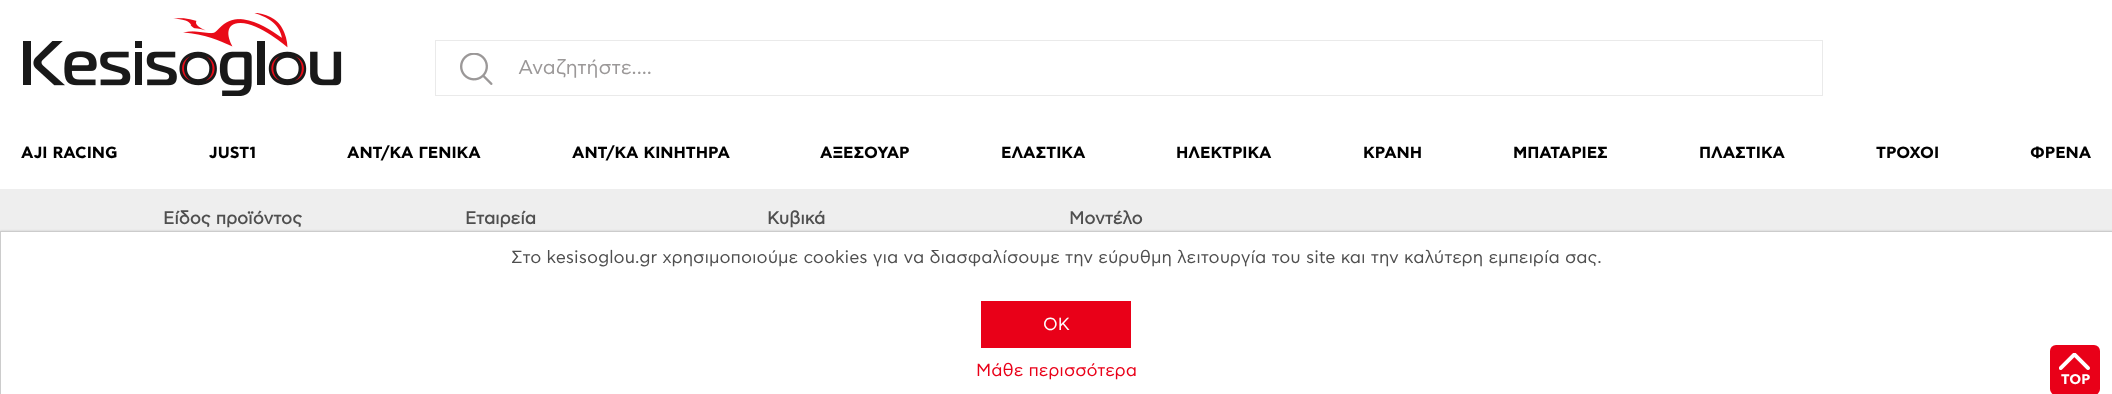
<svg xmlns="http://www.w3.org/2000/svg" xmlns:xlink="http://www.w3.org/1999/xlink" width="2112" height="394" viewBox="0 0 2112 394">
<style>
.cls-1{font:20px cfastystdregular;fill:#9b9898}
.cls-2{font:bold 16.25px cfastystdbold;fill:#000000}
.cls-3{font:bold 17.5px cfastystdregular;fill:#4f4f4f}
.cls-4{font:17.5px cfastystdregular;fill:#4f4f4f}
.cls-5{font:17.5px cfastystdregular;fill:#ffffff}
.cls-6{font:17.5px cfastystdregular;fill:#e90018}
.cls-7{font:bold 14px cfastystdbold;fill:#ffffff}
</style>
<rect width="100%" height="100%" fill="#ffffff"/>
<image xlink:href="image0.png" x="23" y="13" width="319" height="83"/>
<rect fill="none" stroke="#eaeaea" x="435.5" y="40.5" width="1387" height="55"/>
<image xlink:href="image1.png" x="460" y="53" width="33" height="32"/>
<rect fill="#eeeeee" x="0" y="189" width="2112" height="42"/>
<rect fill="#000000" fill-opacity="0.15" filter="blur(1px)" x="0" y="231" width="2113" height="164"/>
<rect fill="#ffffff" stroke="#cccccc" x="0.5" y="231.5" width="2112" height="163"/>
<rect fill="#e90018" x="981" y="301" width="150" height="47"/>
<rect fill="#e90018" x="2050" y="345" width="50" height="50" rx="6"/>
<image xlink:href="image2.png" x="2059" y="353" width="31" height="17"/>
<text class="cls-1" x="518" y="74">Αναζητήστε....</text>
<text class="cls-2" x="21" y="158">AJI RACING</text>
<text class="cls-2" x="209" y="158">JUST1</text>
<text class="cls-2" x="347" y="158">ΑΝΤ/ΚΑ ΓΕΝΙΚΑ</text>
<text class="cls-2" x="572" y="158">ΑΝΤ/ΚΑ ΚΙΝΗΤΗΡΑ</text>
<text class="cls-2" x="820" y="158">ΑΞΕΣΟΥΑΡ</text>
<text class="cls-2" x="1001" y="158">ΕΛΑΣΤΙΚΑ</text>
<text class="cls-2" x="1176" y="158">ΗΛΕΚΤΡΙΚΑ</text>
<text class="cls-2" x="1363" y="158">ΚΡΑΝΗ</text>
<text class="cls-2" x="1513" y="158">ΜΠΑΤΑΡΙΕΣ</text>
<text class="cls-2" x="1699" y="158">ΠΛΑΣΤΙΚΑ</text>
<text class="cls-2" x="1876" y="158">ΤΡΟΧΟΙ</text>
<text class="cls-2" x="2030" y="158">ΦΡΕΝΑ</text>
<text class="cls-3" x="163" y="224">Eίδος προϊόντος</text>
<text class="cls-3" x="465" y="224">Εταιρεία</text>
<text class="cls-3" x="767" y="224">Κυβικά</text>
<text class="cls-3" x="1069" y="224">Μοντέλο</text>
<text class="cls-4" x="511" y="263">Στο kesisoglou.gr χρησιμοποιούμε cookies για να διασφαλίσουμε την εύρυθμη λειτουργία του site και την καλύτερη εμπειρία σας.</text>
<text class="cls-5" x="1043" y="330">OK</text>
<text class="cls-6" x="976" y="376">Μάθε περισσότερα</text>
<text class="cls-7" x="2061" y="384">TOP</text>
</svg>
